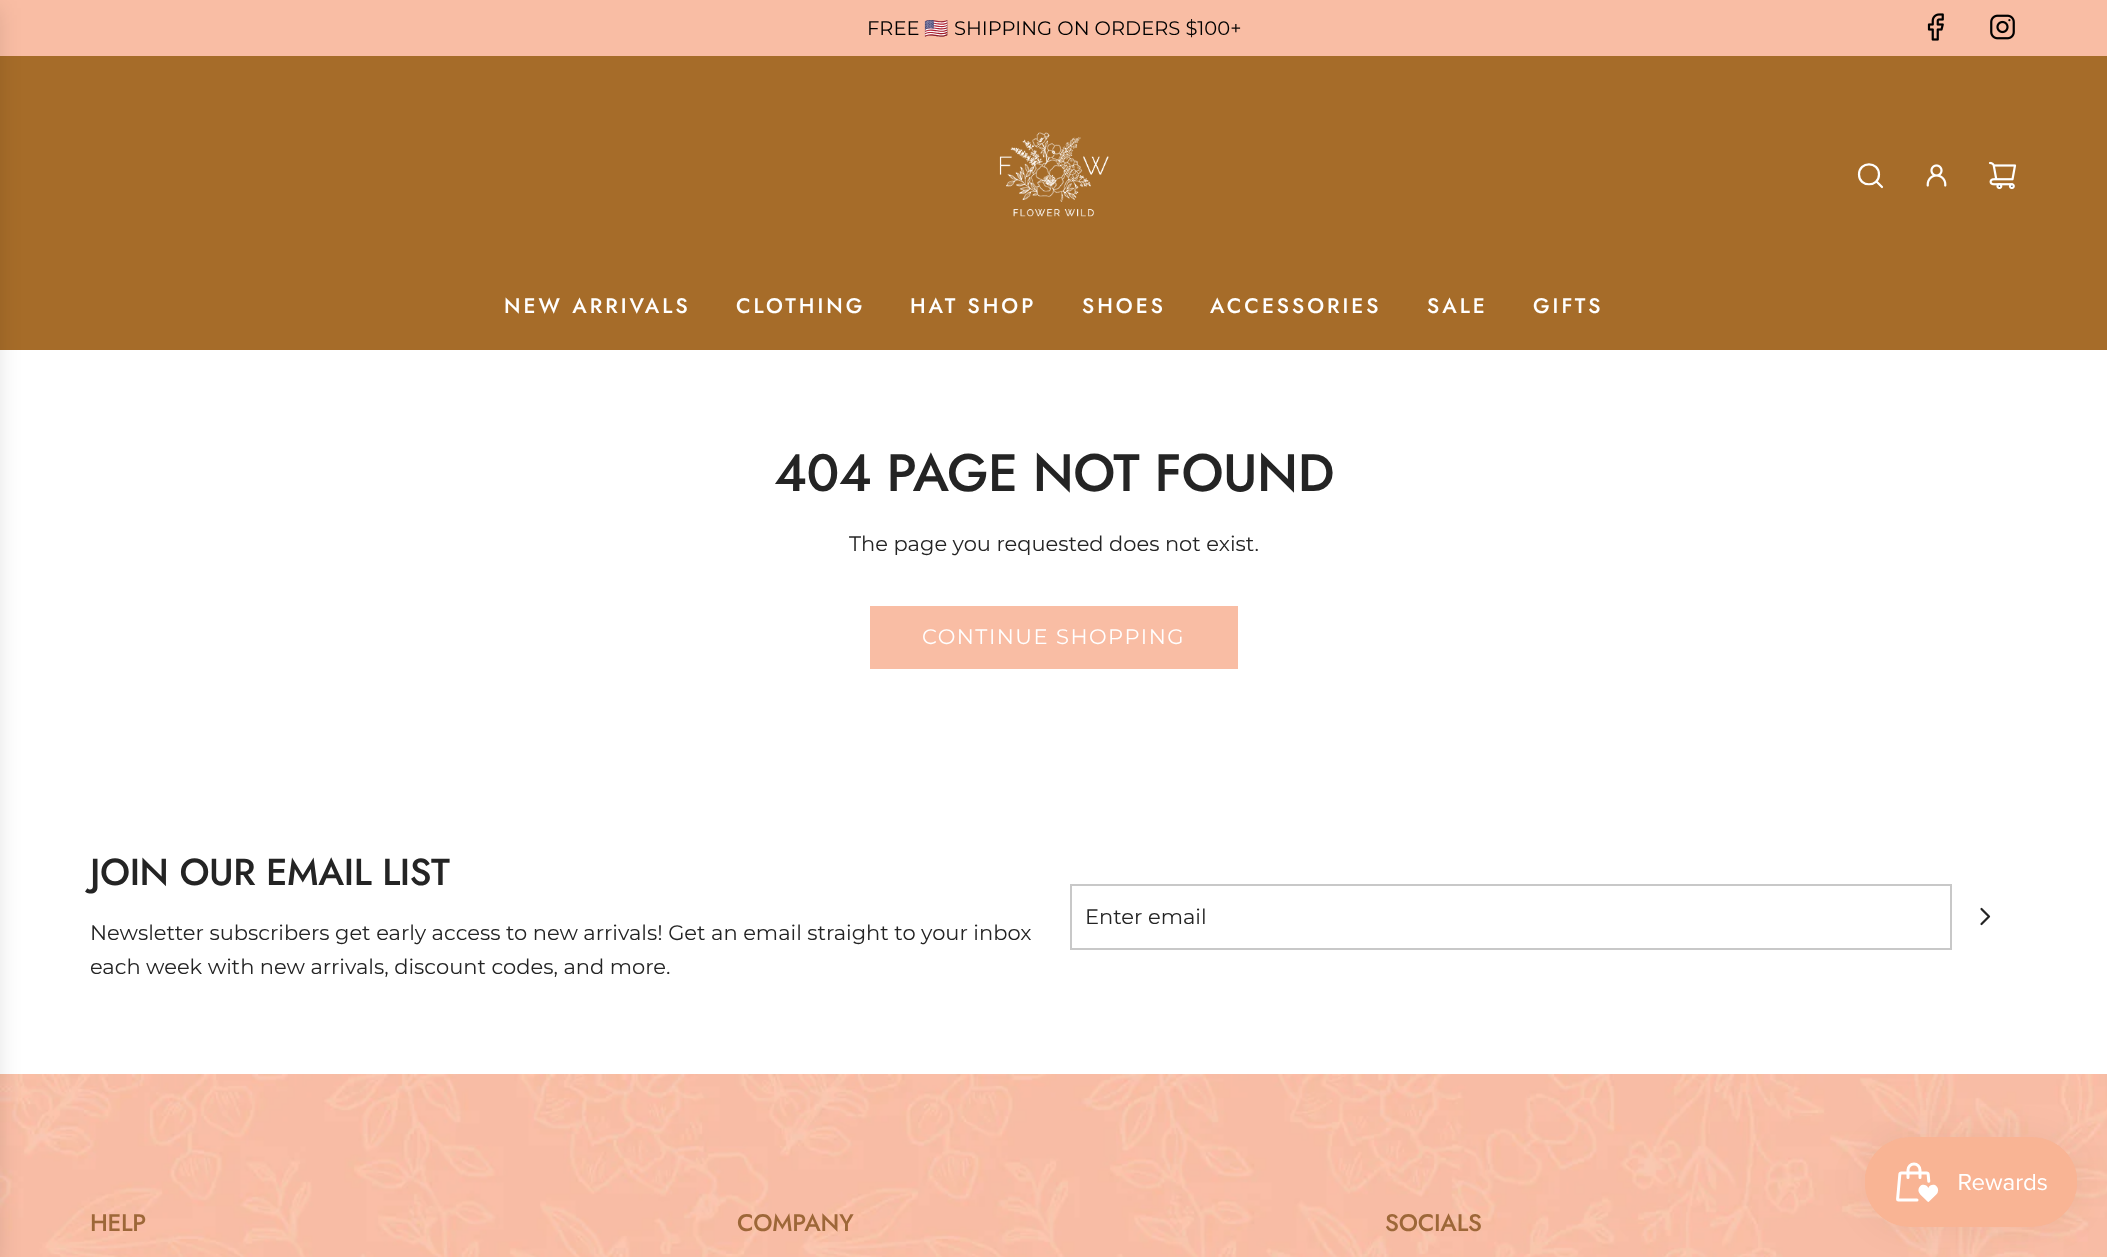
<svg xmlns="http://www.w3.org/2000/svg" xmlns:xlink="http://www.w3.org/1999/xlink" width="2107" height="1257" viewBox="0 0 2107 1257">
<style>
.cls-1{font:19.5px Montserrat;fill:#000000}
.cls-2{font:19.5px Noto Color Emoji;fill:#000000}
.cls-3{font:500 21px Jost;letter-spacing:3px;fill:#ffffff}
.cls-4{font:500 52.5px Jost;letter-spacing:-0.5px;fill:#242424}
.cls-5{font:21px Montserrat;fill:#242424}
.cls-6{font:21px Montserrat;letter-spacing:1.5px;fill:#ffffff}
.cls-7{font:500 37.5px Jost;letter-spacing:-0.4px;fill:#242424}
.cls-8{font:500 24px Jost;letter-spacing:-0.25px;fill:#9d6738}
</style>
<rect width="100%" height="100%" fill="#ffffff"/>
<rect fill="#f9bda4" x="0" y="0" width="2107" height="56"/>
<image xlink:href="image0.png" x="1927" y="13" width="17" height="28"/>
<image xlink:href="image1.png" x="1990" y="14" width="25" height="26"/>
<rect fill="#a66c29" x="0" y="56" width="2107" height="294"/>
<image xlink:href="image5.png" x="0" y="1074" width="2107" height="183"/>
<rect fill="#000000" fill-opacity="0.1" filter="blur(11px)" x="-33" y="8" width="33" height="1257"/>
<image xlink:href="image2.png" x="999" y="132" width="110" height="85"/>
<path fill="none" stroke="#ffffff" stroke-width="2.2" stroke-linecap="round" stroke-linejoin="round" d="M1877 182L1882 187M1859 174.5C1859 187.5 1879 187.5 1879 174.5C1879 161 1859 161 1859 174.5Z"/>
<image xlink:href="image3.png" x="1926" y="164" width="21" height="23"/>
<image xlink:href="image4.png" x="1988" y="161" width="29" height="29"/>
<rect fill="#f9bda4" x="870" y="606" width="368" height="63"/>
<rect fill="none" stroke="#c8c8c8" stroke-width="2" x="1071" y="885" width="880" height="64"/>
<path fill="none" stroke="#242424" stroke-width="2.2" stroke-linecap="round" stroke-linejoin="round" d="M1981.5 909L1989 916.5L1981.5 924"/>
<rect fill="#000000" fill-opacity="0.05" filter="blur(19px)" x="1865" y="1137" width="213" height="90" rx="45"/>
<image xlink:href="image6.png" x="1865" y="1137" width="212" height="90"/>
<text class="cls-1" x="867" y="35">FREE</text>
<text class="cls-2" x="924" y="35">🇺🇸</text>
<text class="cls-1" x="954" y="35">SHIPPING ON ORDERS $100+</text>
<text class="cls-3" x="504" y="313">NEW ARRIVALS</text>
<text class="cls-3" x="736" y="313">CLOTHING</text>
<text class="cls-3" x="910" y="313">HAT SHOP</text>
<text class="cls-3" x="1082" y="313">SHOES</text>
<text class="cls-3" x="1210" y="313">ACCESSORIES</text>
<text class="cls-3" x="1427" y="313">SALE</text>
<text class="cls-3" x="1533" y="313">GIFTS</text>
<text class="cls-4" x="774" y="491">404 PAGE NOT FOUND</text>
<text class="cls-5" x="849" y="551">The page you requested does not exist.</text>
<text class="cls-6" x="922" y="644">CONTINUE SHOPPING</text>
<text class="cls-7" x="90" y="885">JOIN OUR EMAIL LIST</text>
<text class="cls-5"><tspan x="90" y="940">Newsletter subscribers get early access to new arrivals! Get an email straight to your inbox</tspan><tspan x="90" y="974">each week with new arrivals, discount codes, and more.</tspan></text>
<text class="cls-5" x="1085" y="924">Enter email</text>
<text class="cls-8" x="90" y="1231">HELP</text>
<text class="cls-8" x="737" y="1231">COMPANY</text>
<text class="cls-8" x="1385" y="1231">SOCIALS</text>
</svg>
